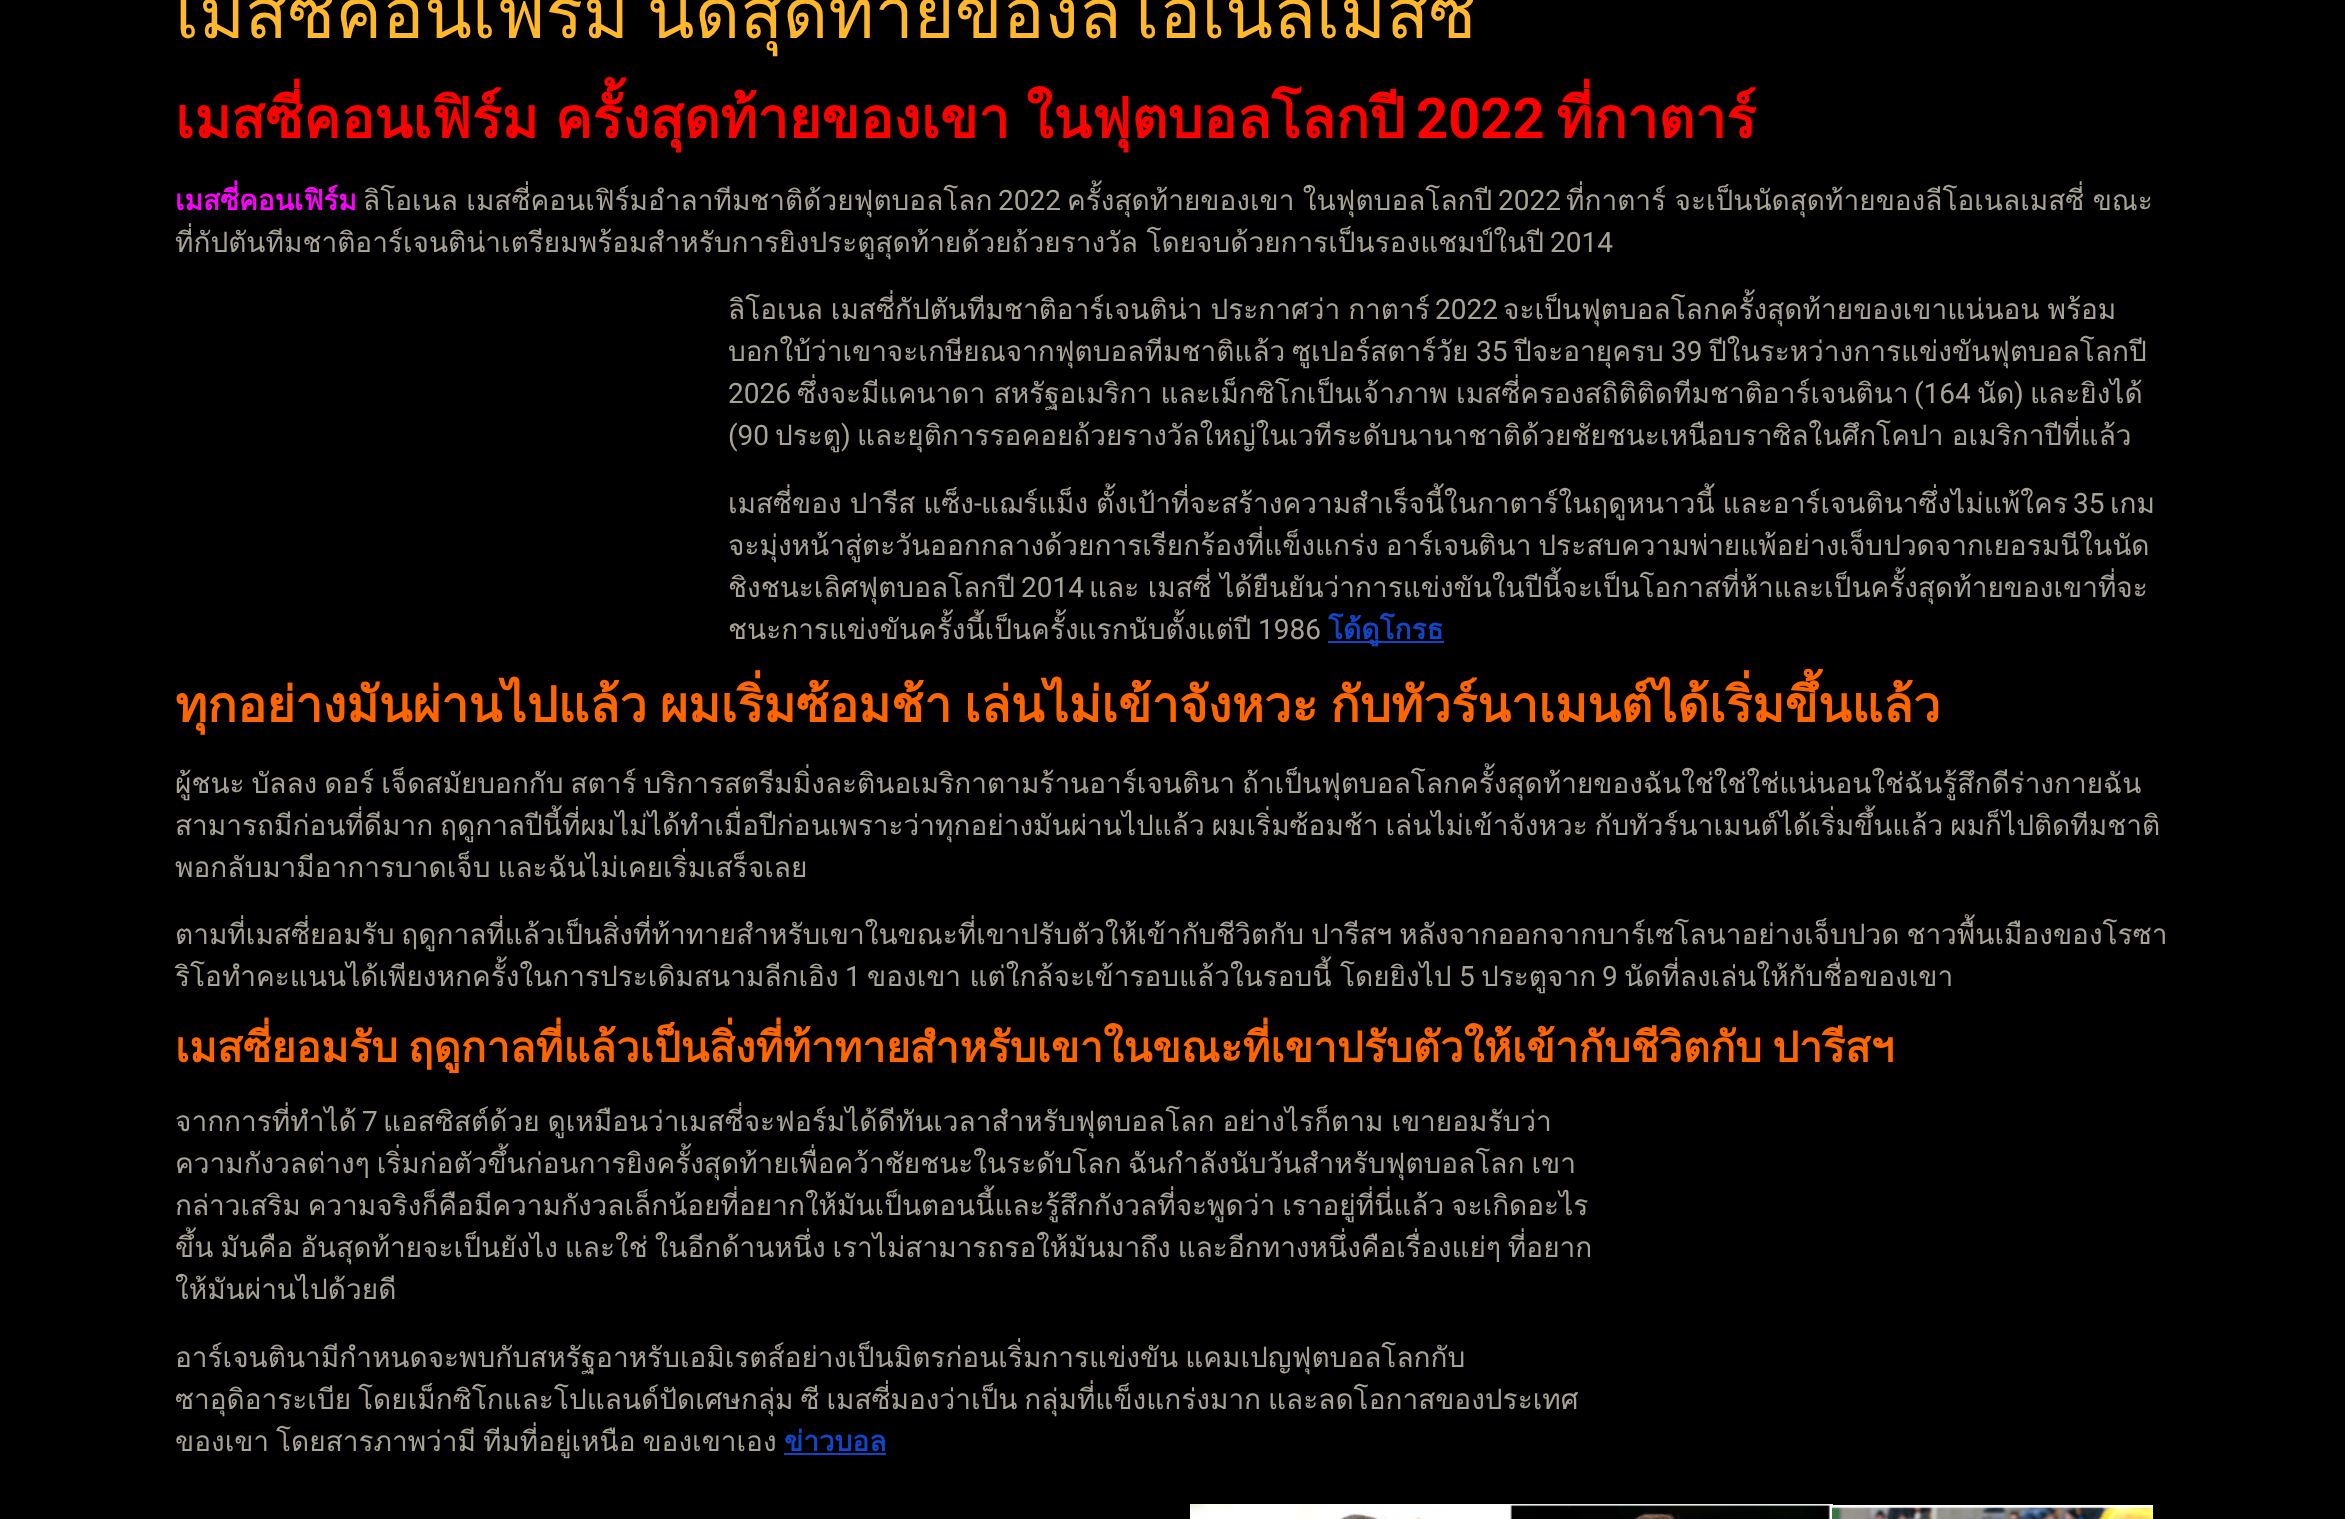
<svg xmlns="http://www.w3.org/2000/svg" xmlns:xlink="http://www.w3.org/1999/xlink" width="2345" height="1519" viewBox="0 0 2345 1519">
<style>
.cls-1{font:70px Loma;fill:#ffb82b}
.cls-2{font:bold 56px Loma;fill:#ff0000}
.cls-3{font:bold 56px Roboto;fill:#ff0000}
.cls-4{font:bold 28px Loma;fill:#ff00ff}
.cls-5{font:28px Loma;fill:#a7a293}
.cls-6{font:28px Roboto;fill:#a7a293}
.cls-7{font:bold 28px Loma;fill:#1246c9}
.cls-8{font:bold 49px Loma;fill:#ff6600}
.cls-9{font:bold 42px Loma;fill:#ff6600}
</style>
<rect width="100%" height="100%" fill="#000000"/>
<rect fill="#1246c9" x="1328" y="641" width="116" height="2"/>
<rect fill="#1246c9" x="784" y="1453" width="102" height="2"/>
<image xlink:href="image0.png" x="1190" y="1504" width="320" height="15"/>
<image xlink:href="image1.png" x="1510" y="1504" width="323" height="15"/>
<image xlink:href="image2.png" x="1832" y="1505" width="321" height="14"/>
<text class="cls-1" x="175" y="38" word-spacing="-6">เมสซี่คอนเฟิร์ม นัดสุดท้ายของลีโอเนลเมสซี่</text>
<text class="cls-2" x="175" y="138" word-spacing="-2.5">เมสซี่คอนเฟิร์ม ครั้งสุดท้ายของเขา ในฟุตบอลโลกปี</text>
<text class="cls-3" x="1416" y="138">2022</text>
<text class="cls-2" x="1556" y="138">ที่กาตาร์</text>
<text class="cls-4" x="175" y="210">เมสซี่คอนเฟิร์ม</text>
<text class="cls-5" x="363" y="210" word-spacing="-1">ลิโอเนล เมสซี่คอนเฟิร์มอำลาทีมชาติด้วยฟุตบอลโลก</text>
<text class="cls-6" x="998" y="210">2022</text>
<text class="cls-5" x="1067" y="210" word-spacing="-1">ครั้งสุดท้ายของเขา ในฟุตบอลโลกปี</text>
<text class="cls-6" x="1498" y="210">2022</text>
<text class="cls-5" x="1566" y="210" word-spacing="-1">ที่กาตาร์ จะเป็นนัดสุดท้ายของลีโอเนลเมสซี่ ขณะ</text>
<text class="cls-5" x="175" y="252" word-spacing="-1">ที่กัปตันทีมชาติอาร์เจนติน่าเตรียมพร้อมสำหรับการยิงประตูสุดท้ายด้วยถ้วยรางวัล โดยจบด้วยการเป็นรองแชมป์ในปี</text>
<text class="cls-6" x="1550" y="252">2014</text>
<text class="cls-5" x="728" y="319" word-spacing="-1.5">ลิโอเนล เมสซี่กัปตันทีมชาติอาร์เจนติน่า ประกาศว่า กาตาร์</text>
<text class="cls-6" x="1435" y="319">2022</text>
<text class="cls-5" x="1503" y="319" word-spacing="-1.5">จะเป็นฟุตบอลโลกครั้งสุดท้ายของเขาแน่นอน พร้อม</text>
<text class="cls-5" x="728" y="361">บอกใบ้ว่าเขาจะเกษียณจากฟุตบอลทีมชาติแล้ว</text>
<text class="cls-5" x="1292" y="361">ซูเปอร์สตาร์วัย</text>
<text class="cls-6" x="1476" y="361">35</text>
<text class="cls-5" x="1514" y="361">ปีจะอายุครบ</text>
<text class="cls-6" x="1671" y="361">39</text>
<text class="cls-5" x="1709" y="361">ปีในระหว่างการแข่งขันฟุตบอลโลกปี</text>
<text class="cls-6" x="728" y="403">2026</text>
<text class="cls-5" x="797" y="403" word-spacing="-1">ซึ่งจะมีแคนาดา สหรัฐอเมริกา และเม็กซิโกเป็นเจ้าภาพ เมสซี่ครองสถิติติดทีมชาติอาร์เจนตินา</text>
<text class="cls-6" x="1914" y="403">(164</text>
<text class="cls-5" x="1977" y="403">นัด</text>
<text class="cls-6" x="2014" y="403">)</text>
<text class="cls-5" x="2030" y="403">และยิงได้</text>
<text class="cls-6" x="728" y="445">(90</text>
<text class="cls-5" x="775" y="445">ประตู</text>
<text class="cls-6" x="841" y="445">)</text>
<text class="cls-5" x="857" y="445" word-spacing="-1">และยุติการรอคอยถ้วยรางวัลใหญ่ในเวทีระดับนานาชาติด้วยชัยชนะเหนือบราซิลในศึกโคปา อเมริกาปีที่แล้ว</text>
<text class="cls-5" x="728" y="513" word-spacing="-1.5">เมสซี่ของ ปารีส แซ็ง</text>
<text class="cls-6" x="974" y="513">-</text>
<text class="cls-5" x="981" y="513" word-spacing="-1.5">แฌร์แม็ง ตั้งเป้าที่จะสร้างความสำเร็จนี้ในกาตาร์ในฤดูหนาวนี้ และอาร์เจนตินาซึ่งไม่แพ้ใคร</text>
<text class="cls-6" x="2073" y="513">35</text>
<text class="cls-5" x="2110" y="513">เกม</text>
<text class="cls-5"><tspan x="728" y="555" word-spacing="-2.5">จะมุ่งหน้าสู่ตะวันออกกลางด้วยการเรียกร้องที่แข็งแกร่ง อาร์เจนตินา ประสบความพ่ายแพ้อย่างเจ็บปวดจากเยอรมนีในนัด</tspan><tspan x="728" y="597">ชิงชนะเลิศฟุตบอลโลกปี</tspan></text>
<text class="cls-6" x="1021" y="597">2014</text>
<text class="cls-5" x="1089" y="597" word-spacing="-1">และ เมสซี่ ได้ยืนยันว่าการแข่งขันในปีนี้จะเป็นโอกาสที่ห้าและเป็นครั้งสุดท้ายของเขาที่จะ</text>
<text class="cls-5" x="728" y="639">ชนะการแข่งขันครั้งนี้เป็นครั้งแรกนับตั้งแต่ปี</text>
<text class="cls-6" x="1258" y="639">1986</text>
<text class="cls-7" x="1328" y="639">โด้ดูโกรธ</text>
<text class="cls-8" x="175" y="722" word-spacing="-4">ทุกอย่างมันผ่านไปแล้ว ผมเริ่มซ้อมช้า เล่นไม่เข้าจังหวะ กับทัวร์นาเมนต์ได้เริ่มขึ้นแล้ว</text>
<text class="cls-5"><tspan x="175" y="793" word-spacing="-2.5">ผู้ชนะ บัลลง ดอร์ เจ็ดสมัยบอกกับ สตาร์ บริการสตรีมมิ่งละตินอเมริกาตามร้านอาร์เจนตินา ถ้าเป็นฟุตบอลโลกครั้งสุดท้ายของฉันใช่ใช่ใช่แน่นอนใช่ฉันรู้สึกดีร่างกายฉัน</tspan><tspan x="175" y="835" word-spacing="-2.5">สามารถมีก่อนที่ดีมาก ฤดูกาลปีนี้ที่ผมไม่ได้ทำเมื่อปีก่อนเพราะว่าทุกอย่างมันผ่านไปแล้ว ผมเริ่มซ้อมช้า เล่นไม่เข้าจังหวะ กับทัวร์นาเมนต์ได้เริ่มขึ้นแล้ว ผมก็ไปติดทีมชาติ</tspan><tspan x="175" y="877" word-spacing="-2.5">พอกลับมามีอาการบาดเจ็บ และฉันไม่เคยเริ่มเสร็จเลย</tspan></text>
<text class="cls-5"><tspan x="175" y="944" word-spacing="-2.5">ตามที่เมสซี่ยอมรับ ฤดูกาลที่แล้วเป็นสิ่งที่ท้าทายสำหรับเขาในขณะที่เขาปรับตัวให้เข้ากับชีวิตกับ ปารีสฯ หลังจากออกจากบาร์เซโลนาอย่างเจ็บปวด ชาวพื้นเมืองของโรซา</tspan><tspan x="175" y="986">ริโอทำคะแนนได้เพียงหกครั้งในการประเดิมสนามลีกเอิง</tspan></text>
<text class="cls-6" x="845" y="986">1</text>
<text class="cls-5" x="867" y="986" word-spacing="-1">ของเขา แต่ใกล้จะเข้ารอบแล้วในรอบนี้ โดยยิงไป</text>
<text class="cls-6" x="1459" y="986">5</text>
<text class="cls-5" x="1481" y="986">ประตูจาก</text>
<text class="cls-6" x="1602" y="986">9</text>
<text class="cls-5" x="1624" y="986">นัดที่ลงเล่นให้กับชื่อของเขา</text>
<text class="cls-9" x="175" y="1062" word-spacing="-4">เมสซี่ยอมรับ ฤดูกาลที่แล้วเป็นสิ่งที่ท้าทายสำหรับเขาในขณะที่เขาปรับตัวให้เข้ากับชีวิตกับ ปารีสฯ</text>
<text class="cls-5" x="175" y="1131">จากการที่ทำได้</text>
<text class="cls-6" x="362" y="1131">7</text>
<text class="cls-5" x="383" y="1131" word-spacing="-1.5">แอสซิสต์ด้วย ดูเหมือนว่าเมสซี่จะฟอร์มได้ดีทันเวลาสำหรับฟุตบอลโลก อย่างไรก็ตาม เขายอมรับว่า</text>
<text class="cls-5" x="175" y="1173" word-spacing="-2.5">ความกังวลต่างๆ เริ่มก่อตัวขึ้นก่อนการยิงครั้งสุดท้ายเพื่อคว้าชัยชนะในระดับโลก</text>
<text class="cls-5" x="1128" y="1173" word-spacing="-2.5">ฉันกำลังนับวันสำหรับฟุตบอลโลก เขา</text>
<text class="cls-5"><tspan x="175" y="1215" word-spacing="-2.5">กล่าวเสริม ความจริงก็คือมีความกังวลเล็กน้อยที่อยากให้มันเป็นตอนนี้และรู้สึกกังวลที่จะพูดว่า เราอยู่ที่นี่แล้ว จะเกิดอะไร</tspan><tspan x="175" y="1257" word-spacing="-2.5">ขึ้น มันคือ อันสุดท้ายจะเป็นยังไง และใช่ ในอีกด้านหนึ่ง เราไม่สามารถรอให้มันมาถึง และอีกทางหนึ่งคือเรื่องแย่ๆ ที่อยาก</tspan><tspan x="175" y="1299">ให้มันผ่านไปด้วยดี</tspan></text>
<text class="cls-5"><tspan x="175" y="1367" word-spacing="-2.5">อาร์เจนตินามีกำหนดจะพบกับสหรัฐอาหรับเอมิเรตส์อย่างเป็นมิตรก่อนเริ่มการแข่งขัน แคมเปญฟุตบอลโลกกับ</tspan><tspan x="175" y="1409" word-spacing="-2.5">ซาอุดิอาระเบีย โดยเม็กซิโกและโปแลนด์ปัดเศษกลุ่ม ซี เมสซี่มองว่าเป็น กลุ่มที่แข็งแกร่งมาก และลดโอกาสของประเทศ</tspan><tspan x="175" y="1451" word-spacing="-2.5">ของเขา โดยสารภาพว่ามี ทีมที่อยู่เหนือ ของเขาเอง</tspan></text>
<text class="cls-7" x="784" y="1451">ข่าวบอล</text>
</svg>
